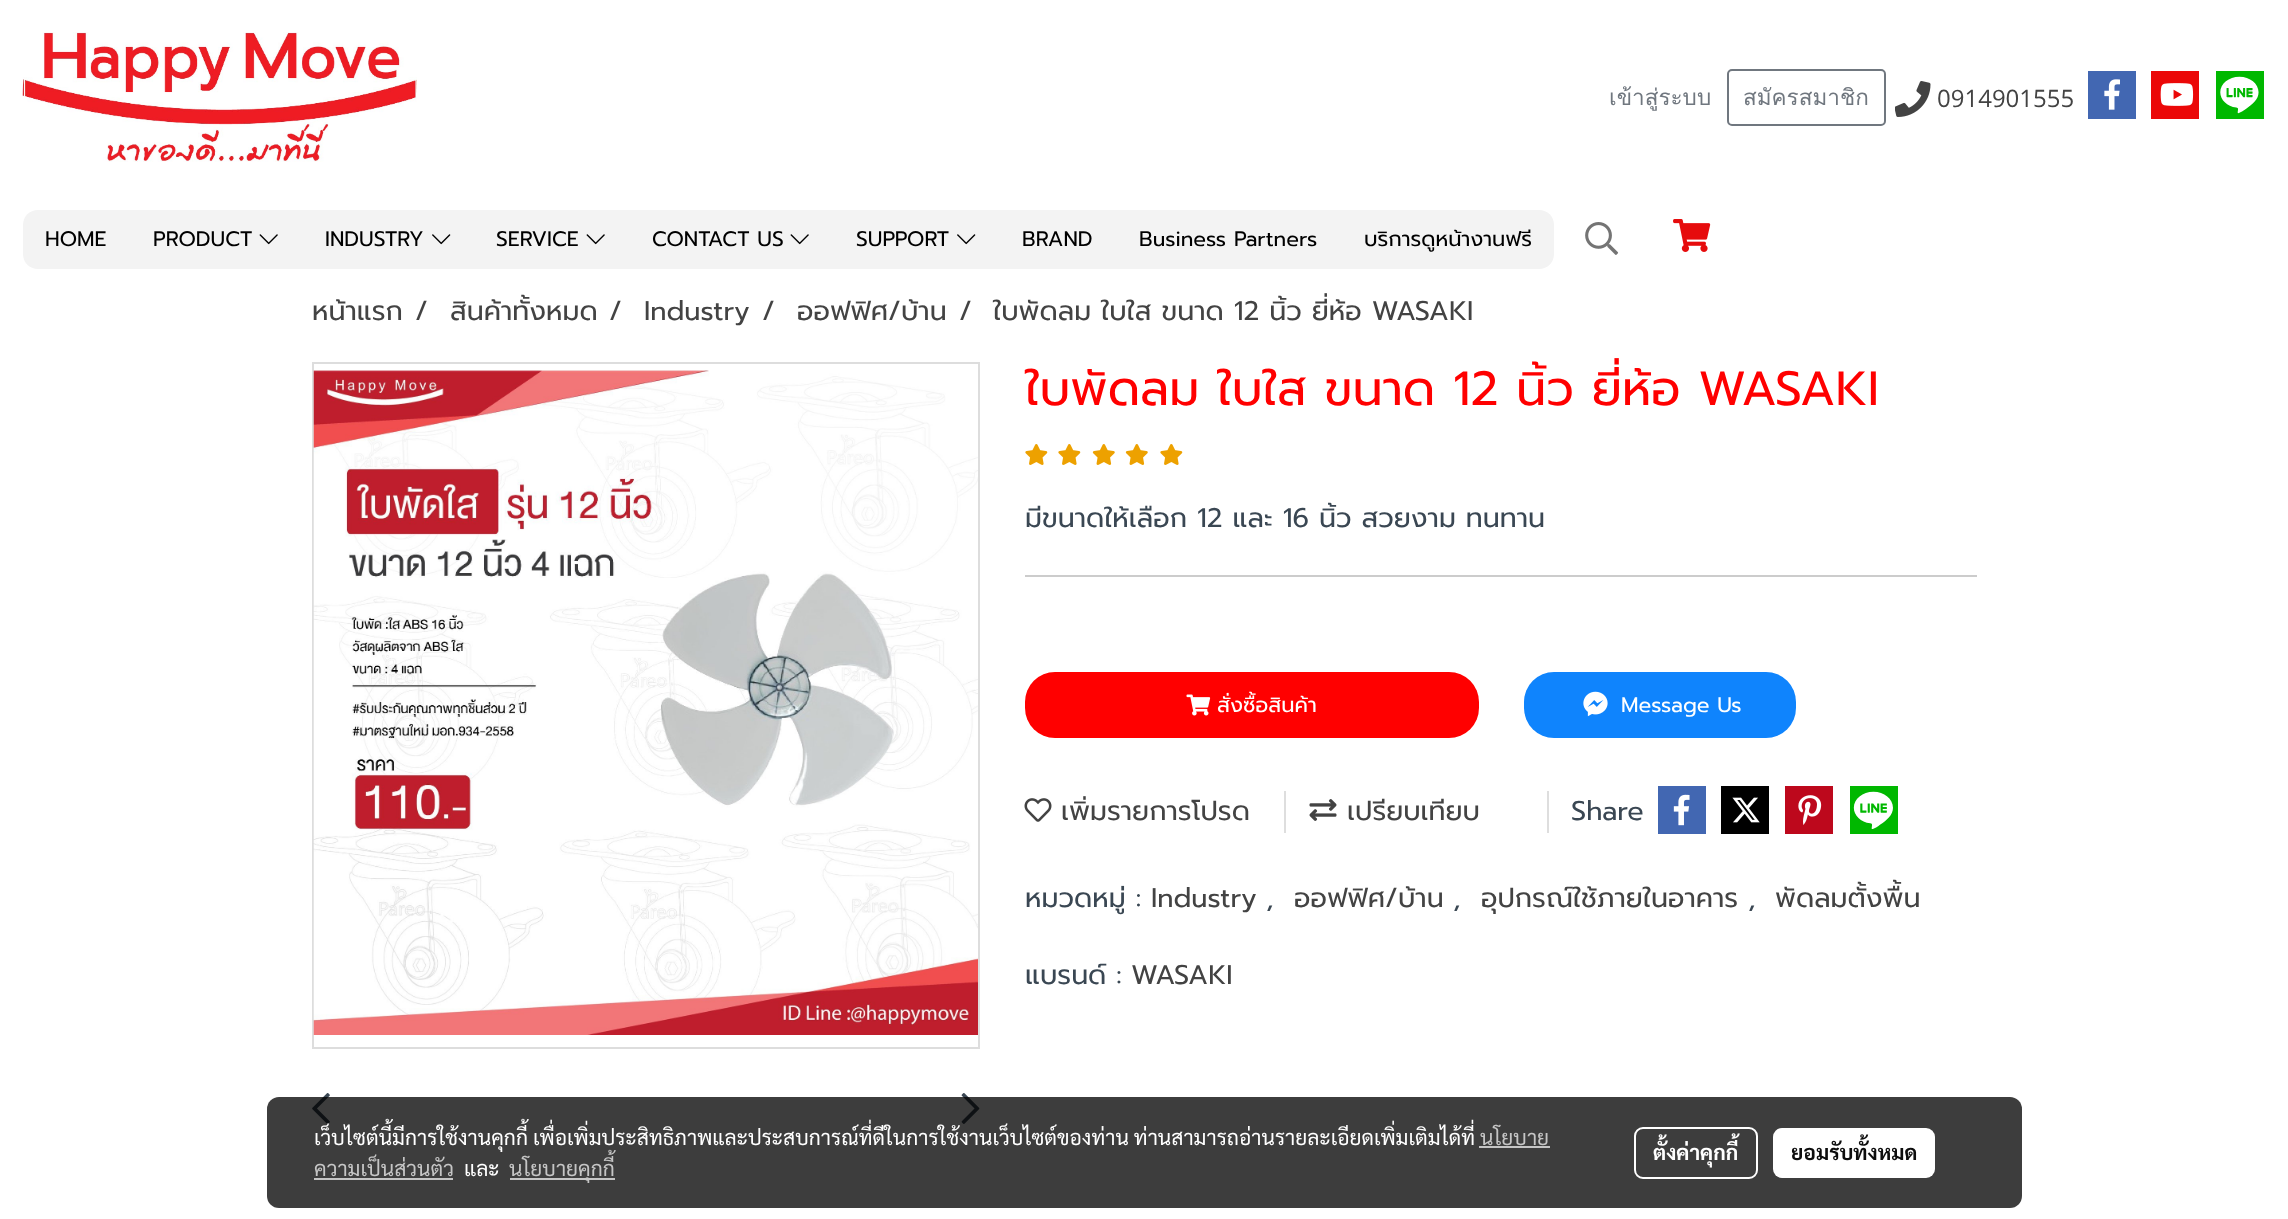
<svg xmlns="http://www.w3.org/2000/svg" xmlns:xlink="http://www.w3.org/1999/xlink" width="2288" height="1219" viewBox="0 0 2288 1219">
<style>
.cls-1{font:22.5px Loma;fill:#70777f}
.cls-2{font:24px Open Sans;fill:#434343}
.cls-3{font:21px Prompt;fill:#000000}
.cls-4{font:27px Prompt;fill:#434343}
.cls-5{font:48px Prompt;fill:#ff0000}
.cls-6{font:27px Prompt;fill:#3a4753}
.cls-7{font:21px Prompt;fill:#ffffff}
.cls-8{font:21px Sarabun;fill:#ffffff}
.cls-9{font:21px Sarabun;fill:#c5c5c5}
.cls-10{font:bold 21px Sarabun;fill:#ffffff}
.cls-11{font:bold 21px Sarabun;fill:#0d0d0d}
</style>
<rect width="100%" height="100%" fill="#ffffff"/>
<image xlink:href="image0.png" x="22" y="32" width="395" height="130"/>
<rect fill="none" stroke="#70777f" stroke-width="2" x="1728" y="70" width="157" height="55" rx="4"/>
<image xlink:href="image1.png" x="1895" y="81" width="36" height="36"/>
<rect fill="#4267b2" x="2088" y="71" width="48" height="48"/>
<image xlink:href="image2.png" x="2104" y="79" width="16" height="31"/>
<rect fill="#eb0808" x="2151" y="71" width="48" height="48"/>
<image xlink:href="image3.png" x="2160" y="83" width="34" height="23"/>
<rect fill="#00b800" x="2216" y="71" width="48" height="48"/>
<image xlink:href="image4.png" x="2220" y="76" width="39" height="38"/>
<rect fill="#f3f3f3" x="129" y="210" width="2" height="59"/>
<path fill="#f3f3f3" d="M38 210H129V269H38C29.5 269 23 262.5 23 254V225C23 216.5 29.5 210 38 210Z"/>
<rect fill="#f3f3f3" x="131" y="210" width="172" height="59"/>
<image xlink:href="image5.png" x="259" y="234" width="19" height="11"/>
<rect fill="#f3f3f3" x="303" y="210" width="171" height="59"/>
<image xlink:href="image6.png" x="432" y="234" width="19" height="11"/>
<rect fill="#f3f3f3" x="474" y="210" width="155" height="59"/>
<image xlink:href="image5.png" x="586" y="234" width="19" height="11"/>
<rect fill="#f3f3f3" x="629" y="210" width="205" height="59"/>
<image xlink:href="image5.png" x="790" y="234" width="19" height="11"/>
<rect fill="#f3f3f3" x="834" y="210" width="165" height="59"/>
<image xlink:href="image6.png" x="957" y="234" width="19" height="11"/>
<rect fill="#f3f3f3" x="999" y="210" width="117" height="59"/>
<rect fill="#f3f3f3" x="1116" y="210" width="225" height="59"/>
<path fill="#f3f3f3" d="M1341 210H1539C1547.5 210 1554 216.5 1554 225V254C1554 262.5 1547.5 269 1539 269H1341Z"/>
<image xlink:href="image7.png" x="1585" y="222" width="34" height="33"/>
<image xlink:href="image8.png" x="1673" y="219" width="38" height="33"/>
<rect fill="none" stroke="#dddddd" stroke-width="2" x="313" y="363" width="666" height="685"/>
<image xlink:href="image9.png" x="313" y="370" width="665" height="665"/>
<image xlink:href="image10.png" x="312" y="1093" width="18" height="31"/>
<image xlink:href="image11.png" x="961" y="1093" width="19" height="31"/>
<image xlink:href="image12.png" x="1025" y="444" width="23" height="21"/>
<image xlink:href="image12.png" x="1058" y="444" width="23" height="21"/>
<image xlink:href="image13.png" x="1092" y="444" width="23" height="21"/>
<image xlink:href="image13.png" x="1125" y="444" width="23" height="21"/>
<image xlink:href="image12.png" x="1160" y="444" width="23" height="21"/>
<rect fill="#cccccc" x="1025" y="575" width="952" height="2"/>
<rect fill="#ff0000" x="1025" y="672" width="454" height="66" rx="30"/>
<rect fill="#0f84fd" x="1524" y="672" width="272" height="66" rx="30"/>
<image xlink:href="image15.png" x="1583" y="691" width="25" height="26"/>
<image xlink:href="image16.png" x="1024" y="798" width="28" height="24"/>
<rect fill="#dedede" x="1284" y="791" width="2" height="42"/>
<image xlink:href="image17.png" x="1309" y="799" width="28" height="22"/>
<rect fill="#dedede" x="1547" y="791" width="2" height="42"/>
<rect fill="#4267b2" x="1658" y="786" width="48" height="48"/>
<image xlink:href="image18.png" x="1673" y="794" width="17" height="32"/>
<rect fill="#000000" x="1721" y="786" width="48" height="48"/>
<image xlink:href="image19.png" x="1732" y="797" width="28" height="26"/>
<rect fill="#bd081c" x="1785" y="786" width="48" height="48"/>
<image xlink:href="image20.png" x="1798" y="795" width="24" height="30"/>
<rect fill="#00b800" x="1850" y="786" width="48" height="48"/>
<image xlink:href="image21.png" x="1853" y="791" width="40" height="38"/>
<rect fill="#000000" fill-opacity="0.76" x="267" y="1097" width="1755" height="111" rx="12"/>
<rect fill="#c5c5c5" x="1479" y="1146" width="71" height="2"/>
<rect fill="#c5c5c5" x="314" y="1178" width="139" height="2"/>
<rect fill="#c5c5c5" x="510" y="1178" width="105" height="2"/>
<rect fill="none" stroke="#ffffff" stroke-width="2" x="1635" y="1128" width="122" height="50" rx="8"/>
<rect fill="#ffffff" x="1773" y="1128" width="162" height="50" rx="9"/>
<text class="cls-1" x="1609" y="105">เข้าสู่ระบบ</text>
<text class="cls-1" x="1743" y="105">สมัครสมาชิก</text>
<text class="cls-2" x="1937" y="107">0914901555</text>
<text class="cls-3" x="45" y="246">HOME</text>
<text class="cls-3" x="153" y="246">PRODUCT</text>
<text class="cls-3" x="325" y="246">INDUSTRY</text>
<text class="cls-3" x="496" y="246">SERVICE</text>
<text class="cls-3" x="652" y="246">CONTACT US</text>
<text class="cls-3" x="856" y="246">SUPPORT</text>
<text class="cls-3" x="1022" y="246">BRAND</text>
<text class="cls-3" x="1139" y="246">Business Partners</text>
<text class="cls-3" x="1364" y="246">บริการดูหน้างานฟรี</text>
<text class="cls-4" x="312" y="320">หน้าแรก</text>
<text class="cls-4" x="415" y="320">/</text>
<text class="cls-4" x="450" y="320">สินค้าทั้งหมด</text>
<text class="cls-4" x="609" y="320">/</text>
<text class="cls-4" x="644" y="320">Industry</text>
<text class="cls-4" x="762" y="320">/</text>
<text class="cls-4" x="797" y="320">ออฟฟิศ/บ้าน</text>
<text class="cls-4" x="959" y="320">/</text>
<text class="cls-4" x="993" y="320">ใบพัดลม ใบใส ขนาด 12 นิ้ว ยี่ห้อ WASAKI</text>
<text class="cls-5" x="1025" y="405">ใบพัดลม ใบใส ขนาด 12 นิ้ว ยี่ห้อ WASAKI</text>
<text class="cls-6" x="1025" y="527">มีขนาดให้เลือก 12 และ 16 นิ้ว สวยงาม ทนทาน</text>
<text class="cls-7" x="1217" y="712">สั่งซื้อสินค้า</text>
<image xlink:href="image14.png" x="1186" y="694" width="25" height="22"/>
<text class="cls-7" x="1621" y="712">Message Us</text>
<text class="cls-4" x="1061" y="820">เพิ่มรายการโปรด</text>
<text class="cls-4" x="1347" y="820">เปรียบเทียบ</text>
<text class="cls-6" x="1571" y="820">Share</text>
<text class="cls-6" x="1025" y="907">หมวดหมู่ :</text>
<text class="cls-4" x="1151" y="907">Industry</text>
<text class="cls-6" x="1266" y="907">,</text>
<text class="cls-4" x="1294" y="907">ออฟฟิศ/บ้าน</text>
<text class="cls-6" x="1453" y="907">,</text>
<text class="cls-4" x="1481" y="907">อุปกรณ์ใช้ภายในอาคาร</text>
<text class="cls-6" x="1748" y="907">,</text>
<text class="cls-4" x="1775" y="907">พัดลมตั้งพื้น</text>
<text class="cls-6" x="1025" y="984">แบรนด์ :</text>
<text class="cls-4" x="1131" y="984">WASAKI</text>
<text class="cls-8" x="314" y="1145">เว็บไซต์นี้มีการใช้งานคุกกี้ เพื่อเพิ่มประสิทธิภาพและประสบการณ์ที่ดีในการใช้งานเว็บไซต์ของท่าน ท่านสามารถอ่านรายละเอียดเพิ่มเติมได้ที่</text>
<text class="cls-9" x="1480" y="1145">นโยบาย</text>
<text class="cls-9" x="314" y="1176">ความเป็นส่วนตัว</text>
<text class="cls-8" x="464" y="1176">และ</text>
<text class="cls-9" x="509" y="1176">นโยบายคุกกี้</text>
<text class="cls-10" x="1653" y="1160">ตั้งค่าคุกกี้</text>
<text class="cls-11" x="1791" y="1160">ยอมรับทั้งหมด</text>
</svg>
